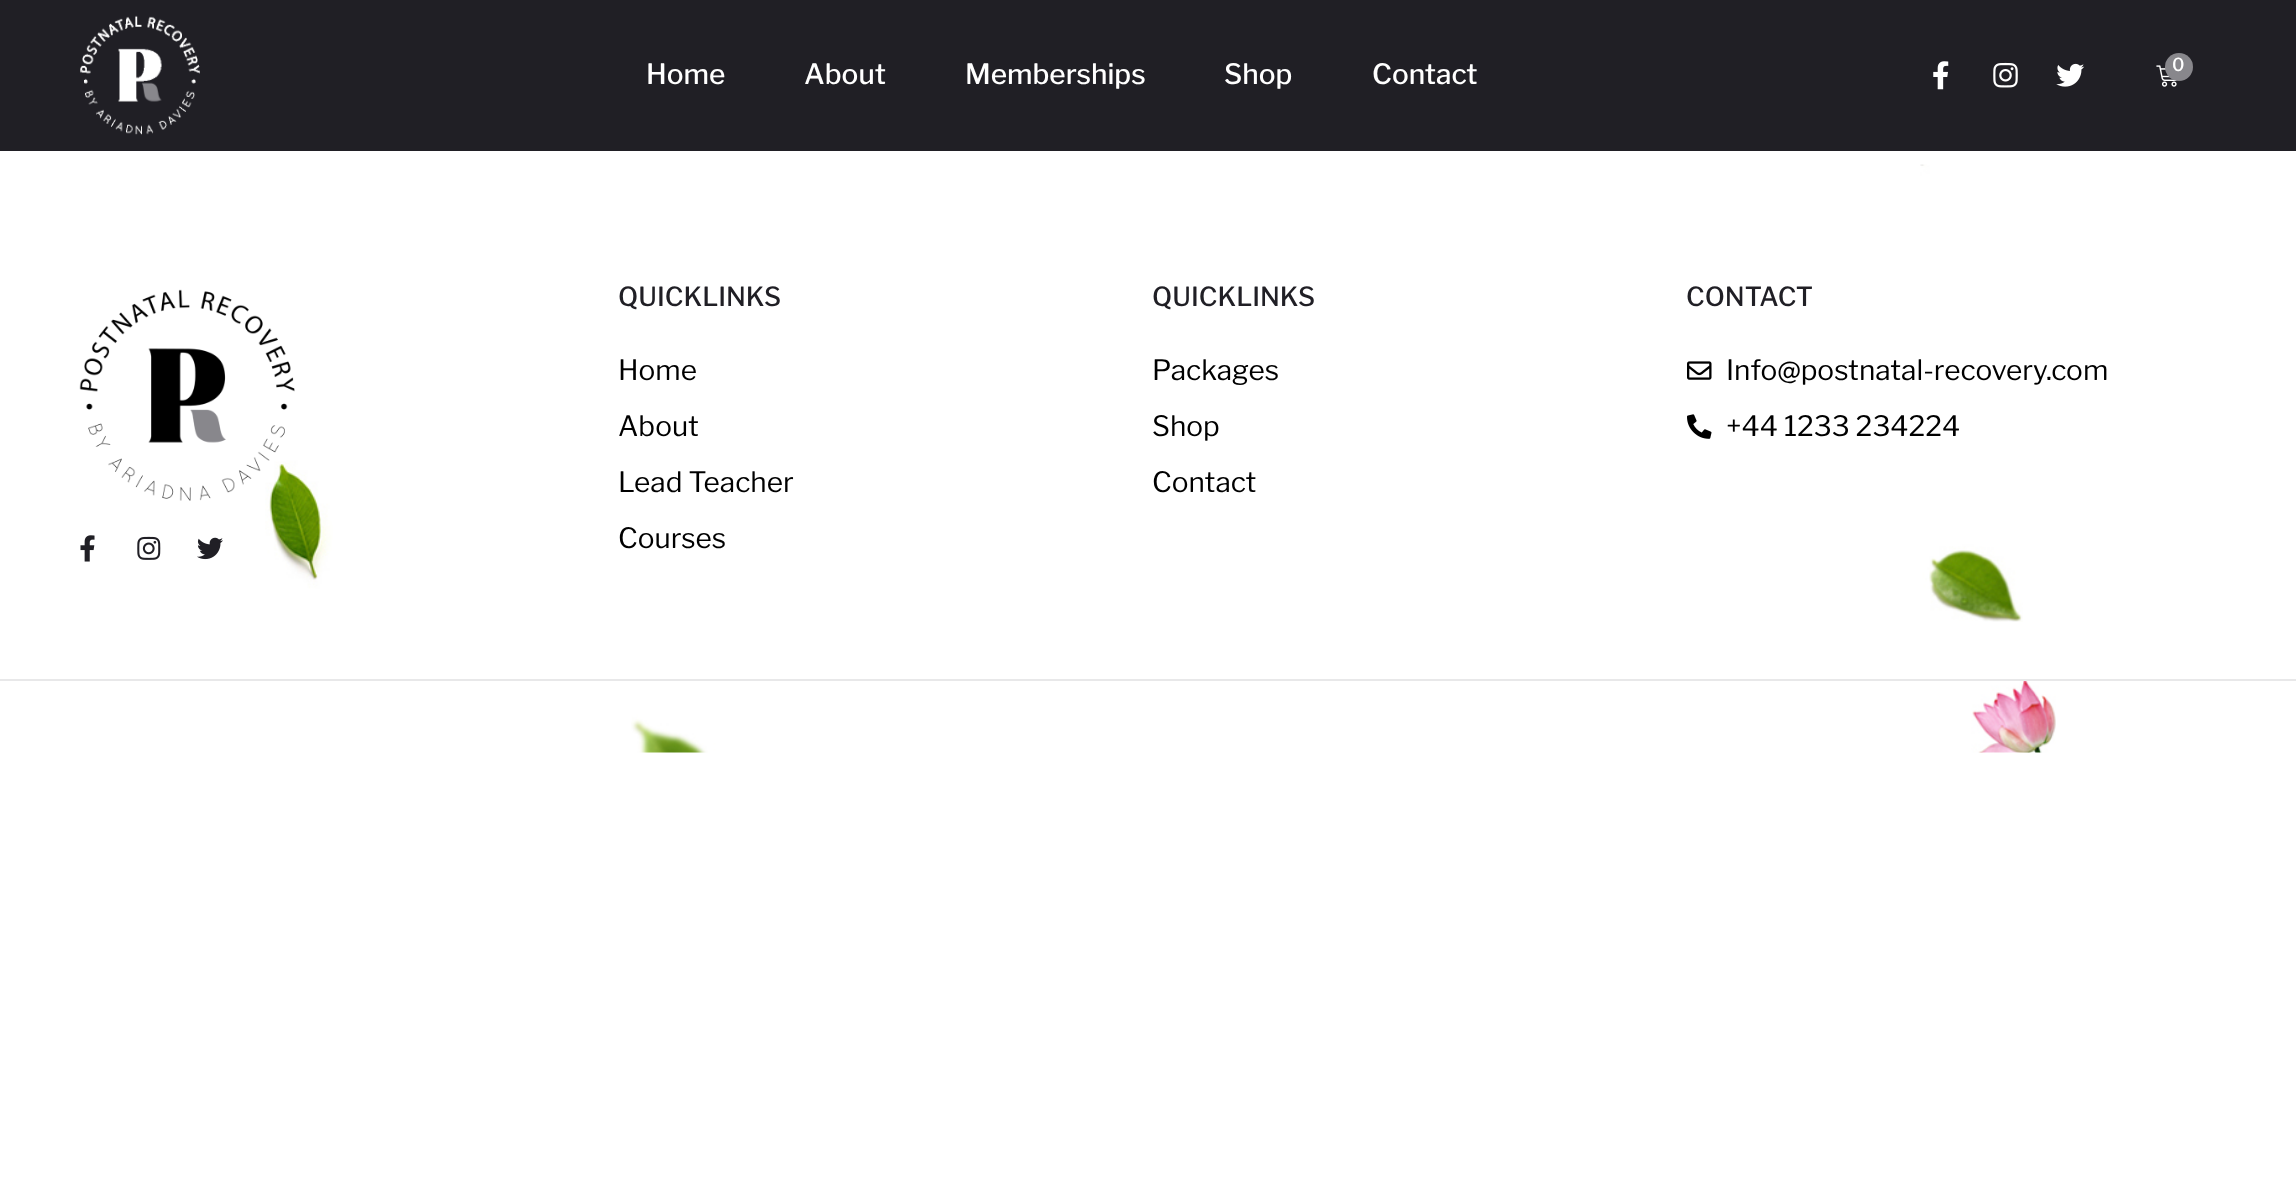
<svg xmlns="http://www.w3.org/2000/svg" xmlns:xlink="http://www.w3.org/1999/xlink" width="2296" height="1198" viewBox="0 0 2296 1198">
<style>
.cls-1{font:500 28px Libre Franklin;fill:#ffffff}
.cls-2{font:500 18px Libre Franklin;letter-spacing:2px;fill:#ffffff}
.cls-3{font:500 26.25px Libre Franklin;fill:#201f25}
.cls-4{font:28px Libre Franklin;fill:#000000}
</style>
<rect width="100%" height="100%" fill="#ffffff"/>
<rect fill="#201f25" x="0" y="0" width="2296" height="151"/>
<image xlink:href="image0.png" x="80" y="15" width="120" height="120"/>
<image xlink:href="image1.png" x="1933" y="61" width="16" height="29"/>
<image xlink:href="image2.png" x="1993" y="62" width="25" height="26"/>
<image xlink:href="image3.png" x="2056" y="63" width="29" height="24"/>
<image xlink:href="image4.png" x="2156" y="65" width="21" height="22"/>
<circle fill="#88878c" cx="2179" cy="67" r="14"/>
<image xlink:href="image5.png" x="265" y="164" width="1758" height="458"/>
<image xlink:href="image6.png" x="79" y="289" width="216" height="212"/>
<image xlink:href="image7.png" x="80" y="535" width="15" height="27"/>
<image xlink:href="image8.png" x="137" y="536" width="24" height="24"/>
<image xlink:href="image9.png" x="197" y="537" width="26" height="23"/>
<image xlink:href="image10.png" x="1687" y="361" width="25" height="19"/>
<image xlink:href="image11.png" x="1687" y="414" width="25" height="25"/>
<image xlink:href="image12.png" x="631" y="681" width="1425" height="72"/>
<rect fill="#e8e8e9" x="0" y="679" width="2296" height="2"/>
<text class="cls-1" x="646" y="84">Home</text>
<text class="cls-1" x="804" y="84">About</text>
<text class="cls-1" x="965" y="84">Memberships</text>
<text class="cls-1" x="1224" y="84">Shop</text>
<text class="cls-1" x="1372" y="84">Contact</text>
<text class="cls-2" x="2172" y="71">0</text>
<text class="cls-3" x="618" y="306">QUICKLINKS</text>
<text class="cls-4" x="618" y="380">Home</text>
<text class="cls-4" x="618" y="436">About</text>
<text class="cls-4" x="618" y="492">Lead Teacher</text>
<text class="cls-4" x="618" y="548">Courses</text>
<text class="cls-3" x="1152" y="306">QUICKLINKS</text>
<text class="cls-4" x="1152" y="380">Packages</text>
<text class="cls-4" x="1152" y="436">Shop</text>
<text class="cls-4" x="1152" y="492">Contact</text>
<text class="cls-3" x="1686" y="306">CONTACT</text>
<text class="cls-4" x="1726" y="380">Info@postnatal-recovery.com</text>
<text class="cls-4" x="1726" y="436">+44 1233 234224</text>
</svg>
